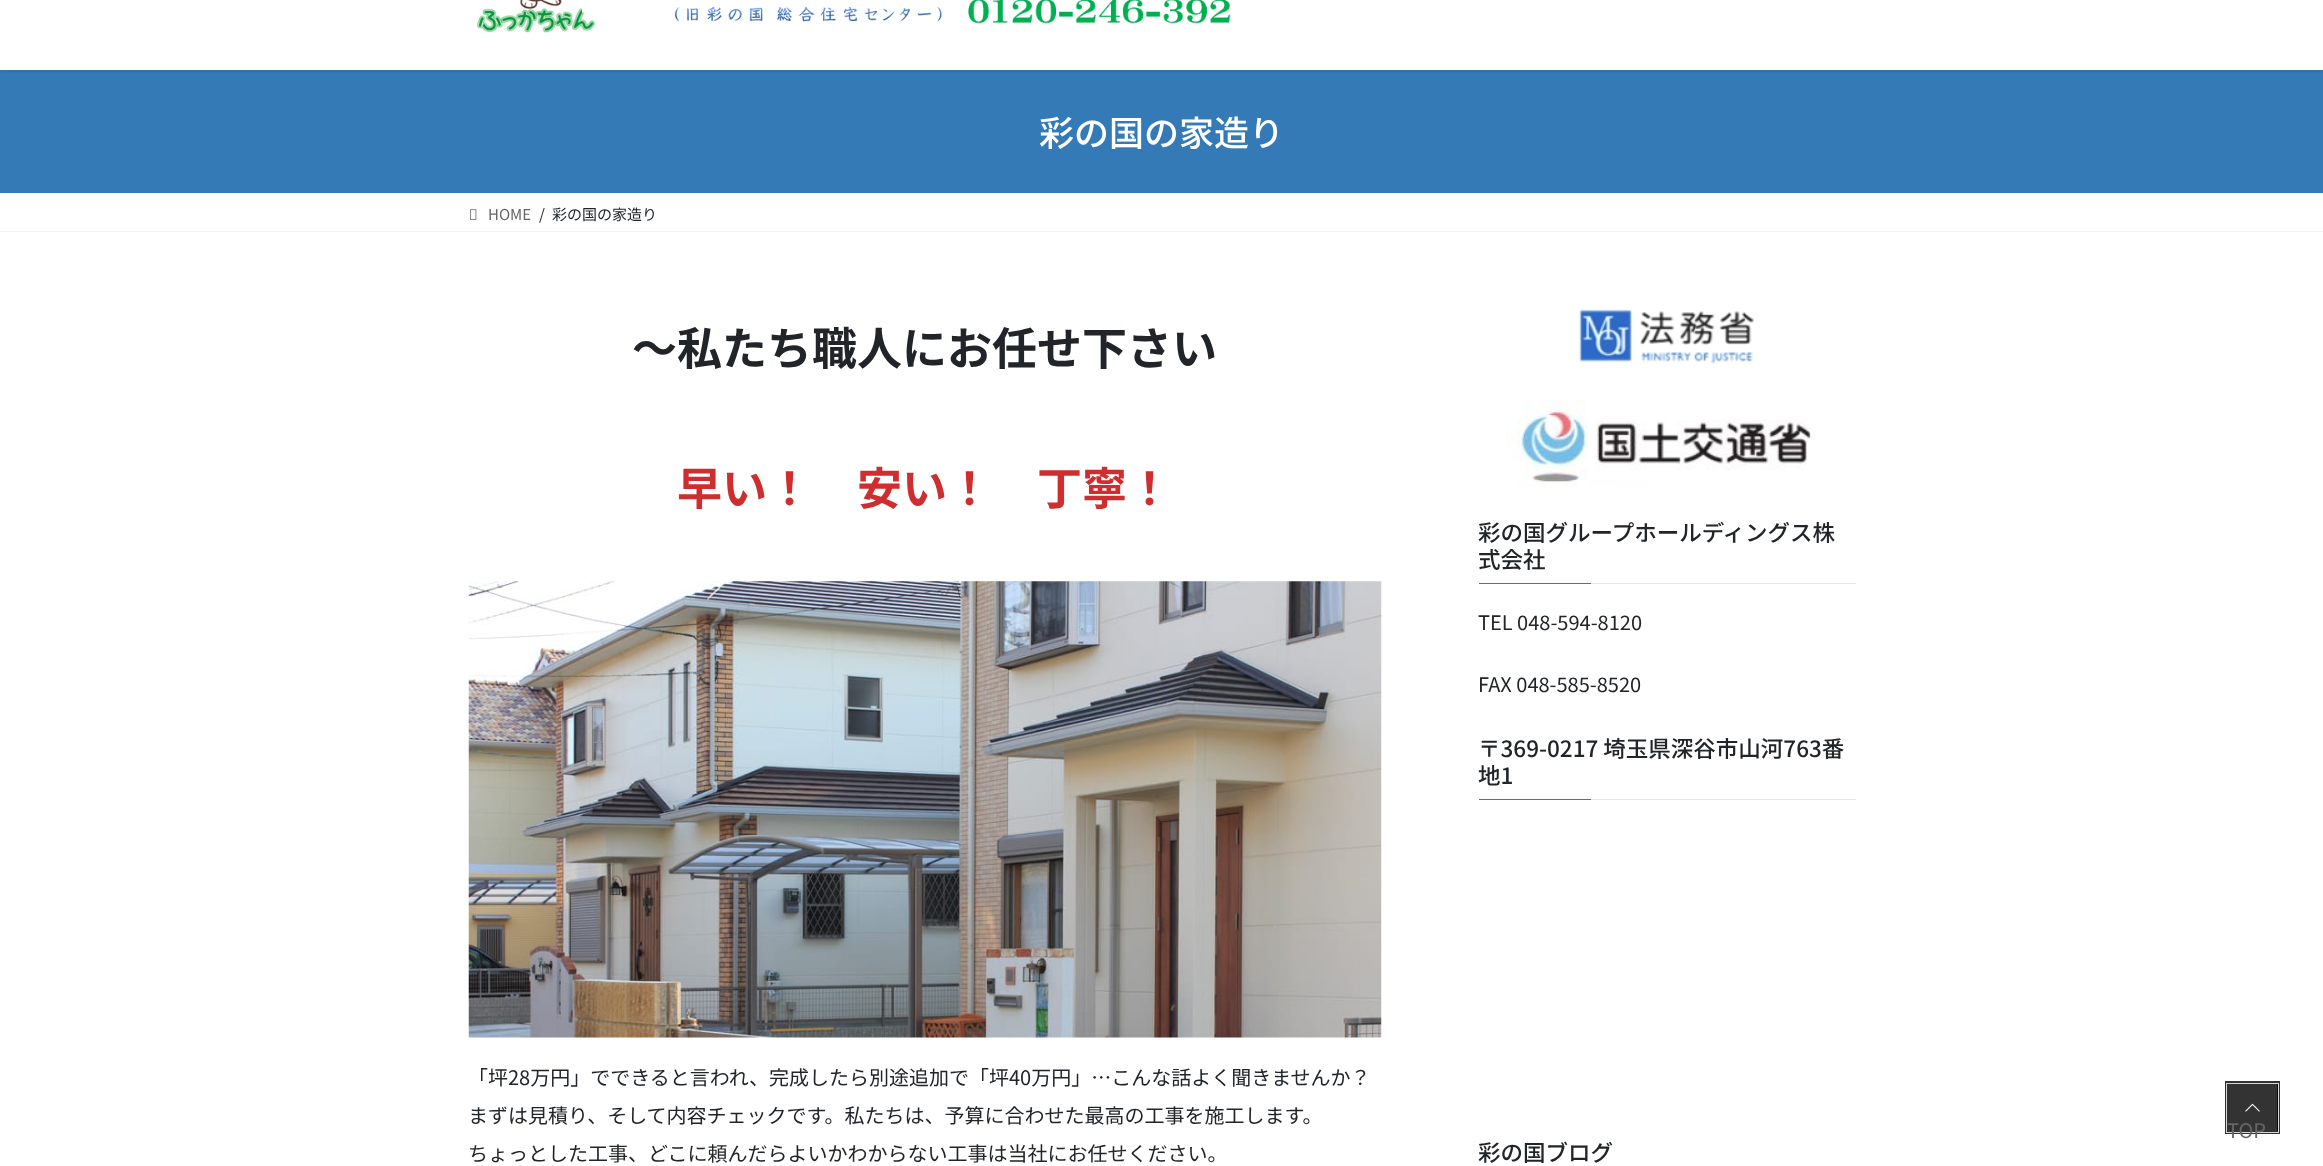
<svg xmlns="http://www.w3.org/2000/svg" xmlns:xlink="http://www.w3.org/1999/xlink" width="2323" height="1166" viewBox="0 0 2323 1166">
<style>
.cls-1{font:500 35px Noto Sans JP;fill:#ffffff}
.cls-2{font:15px Noto Sans JP;fill:#666666}
.cls-3{font:15px Noto Sans JP;fill:#212529}
.cls-4{font:bold 45px Noto Sans JP;fill:#212529}
.cls-5{font:bold 45px Noto Sans JP;fill:#cf2e2e}
.cls-6{font:20px Noto Sans JP;fill:#212529}
.cls-7{font:500 22.5px Noto Sans JP;fill:#212529}
.cls-8{font:20px Noto Sans JP;fill:#666666}
</style>
<defs>
<clipPath id="clip1"><rect x="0" y="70" width="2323" height="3"/></clipPath>
</defs>
<rect width="100%" height="100%" fill="#ffffff"/>
<rect fill="#337ab7" x="0" y="70" width="2323" height="123"/>
<g clip-path="url(#clip1)">
<rect fill="#000000" fill-opacity="0.1" filter="blur(2px)" x="0" y="-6" width="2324" height="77"/>
</g>
<image xlink:href="image0.png" x="477" y="0" width="754" height="33"/>
<rect fill="#f2f2f2" x="0" y="231" width="2323" height="1"/>
<image xlink:href="image1.png" x="470" y="209" width="7" height="11"/>
<image xlink:href="image2.png" x="468" y="581" width="914" height="457"/>
<image xlink:href="image3.png" x="1578" y="309" width="177" height="55"/>
<image xlink:href="image4.png" x="1506" y="400" width="310" height="87"/>
<rect fill="#e6e6e6" x="1591" y="583" width="265" height="1"/>
<rect fill="#337ab7" x="1479" y="583" width="112" height="1"/>
<rect fill="#e6e6e6" x="1591" y="799" width="265" height="1"/>
<rect fill="#337ab7" x="1479" y="799" width="112" height="1"/>
<rect fill="none" stroke="#333333" stroke-width="3" x="2226.5" y="1082.5" width="52" height="50"/>
<rect fill="none" stroke="#d6d6d6" x="2226.5" y="1083.5" width="52" height="49"/>
<rect fill="#000000" fill-opacity="0.8" x="2228" y="1084" width="50" height="47"/>
<image xlink:href="image5.png" x="2245" y="1103" width="15" height="9"/>
<text class="cls-1" x="1039" y="146">彩の国の家造り</text>
<text class="cls-2" x="488" y="220">HOME</text>
<text class="cls-3" x="539" y="220">/</text>
<text class="cls-3" x="552" y="220">彩の国の家造り</text>
<text class="cls-4" x="632" y="365">～私たち職人にお任せ下さい</text>
<text class="cls-5" x="677" y="505">早い！　安い！　丁寧！</text>
<text class="cls-6"><tspan x="468" y="1085">「坪28万円」でできると言われ、完成したら別途追加で「坪40万円」…こんな話よく聞きませんか？</tspan><tspan x="468" y="1123">まずは見積り、そして内容チェックです。私たちは、予算に合わせた最高の工事を施工します。</tspan><tspan x="468" y="1161">ちょっとした工事、どこに頼んだらよいかわからない工事は当社にお任せください。</tspan></text>
<text class="cls-7"><tspan x="1478" y="541">彩の国グループホールディングス株</tspan><tspan x="1478" y="568">式会社</tspan></text>
<text class="cls-6" x="1478" y="630">TEL 048-594-8120</text>
<text class="cls-6" x="1478" y="692">FAX 048-585-8520</text>
<text class="cls-7"><tspan x="1478" y="757">〒369-0217 埼玉県深谷市山河763番</tspan><tspan x="1478" y="784">地1</tspan></text>
<text class="cls-7" x="1478" y="1161">彩の国ブログ</text>
<text class="cls-8" x="2227" y="1138">TOP</text>
</svg>
